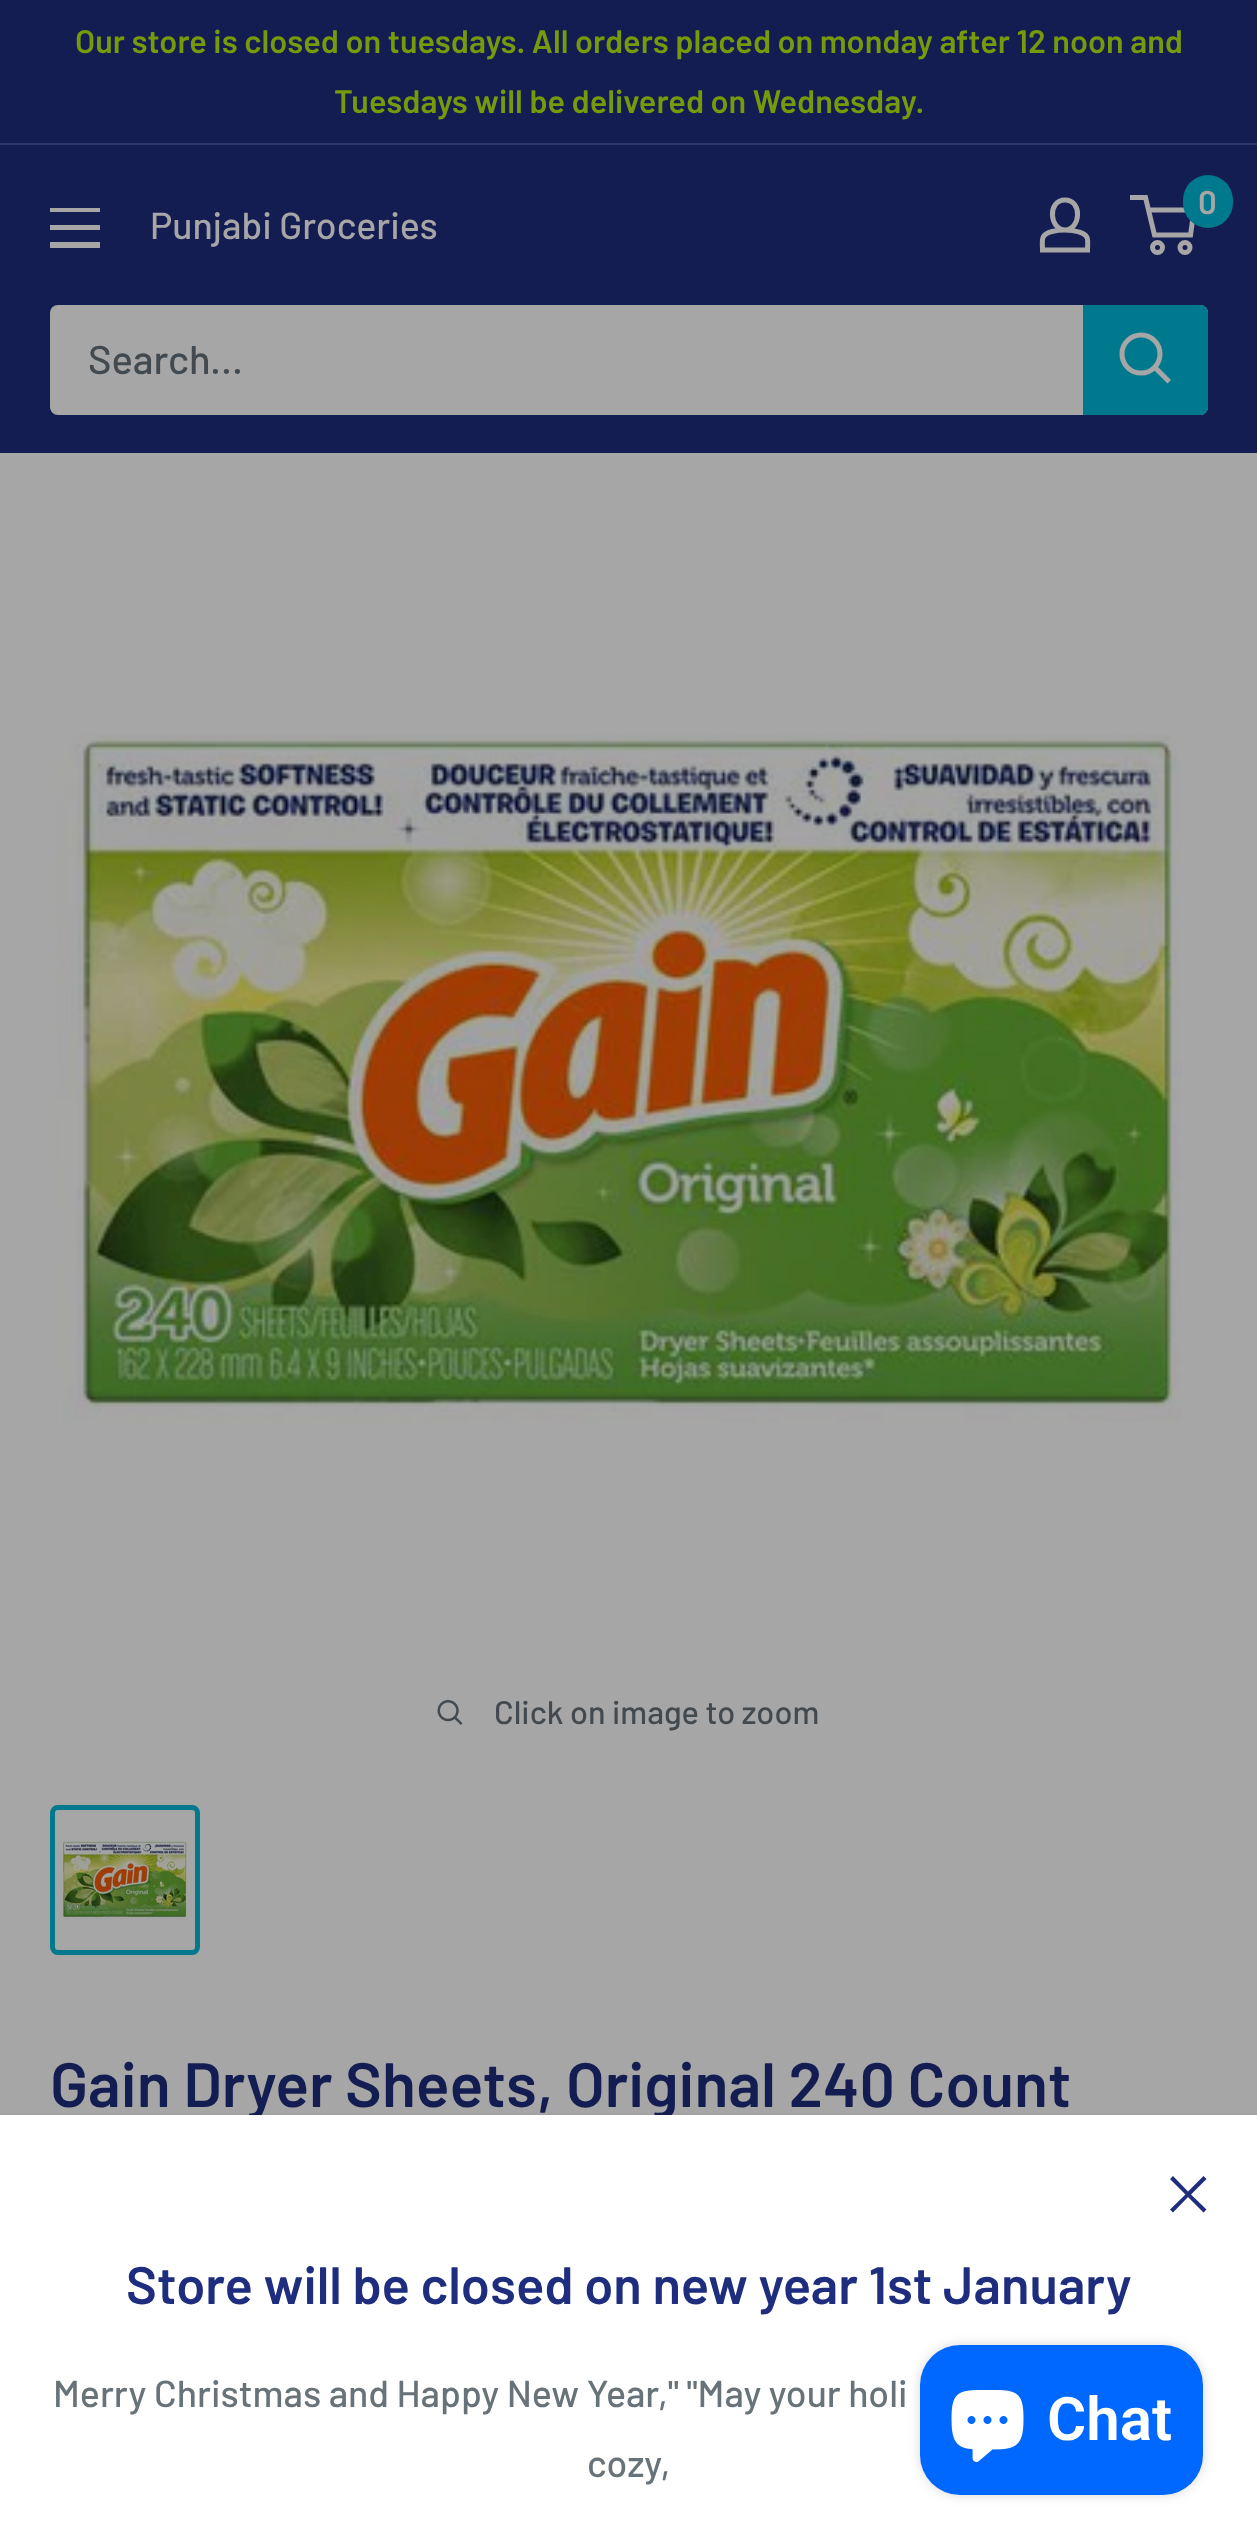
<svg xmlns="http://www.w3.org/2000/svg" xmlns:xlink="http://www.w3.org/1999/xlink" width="1257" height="2546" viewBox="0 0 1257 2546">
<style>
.cls-1{font:600 32.5px Barlow;fill:#769a0a}
.cls-2{font:600 33px Barlow;fill:#a6a6a6}
.cls-3{font:500 37.5px Barlow;fill:#a6a6a6}
.cls-4{font:500 40px Barlow;fill:#434a4f}
.cls-5{font:500 32.5px Barlow;fill:#434a4f}
.cls-6{font:600 62.5px Barlow;fill:#141d51}
.cls-7{font:600 52.5px Barlow;fill:#1e2d7d}
.cls-8{font:500 37.5px Barlow;fill:#677279}
.cls-9{font:600 60px Roboto;fill:#ffffff}
</style>
<rect width="100%" height="100%" fill="#141d51"/>
<rect fill="#2e3767" x="0" y="143" width="1257" height="2"/>
<path fill="none" stroke="#a6a6a6" stroke-width="5" d="M1065 230C1069.5 230 1074.5 230.5 1079 232C1090 235 1087.5 240.5 1087.5 250H1042.5C1042.5 240 1040 234.5 1052 231.5C1056 230.5 1060.5 230 1065 230ZM1065 230C1049.5 230 1047 200 1065 200C1083 200 1080.5 230 1065 230Z"/>
<circle fill="none" stroke="#a6a6a6" stroke-width="5" cx="1157.5" cy="247.5" r="5"/>
<circle fill="none" stroke="#a6a6a6" stroke-width="5" cx="1185" cy="247.5" r="5"/>
<path fill="none" stroke="#a6a6a6" stroke-width="5" d="M1148.5 210H1194L1190.5 235H1154.5L1145.5 197.5H1130"/>
<rect fill="#00798e" x="1183" y="175" width="50" height="53" rx="25"/>
<path fill="#a6a6a6" fill-rule="evenodd" d="M50 242H100V248H50ZM50 208H100V212H50ZM50 225H100V230H50Z"/>
<rect fill="#a6a6a6" x="50" y="305" width="1158" height="110" rx="8"/>
<path fill="#00798e" d="M1083 305H1200C1204.5 305 1208 308.5 1208 313V407C1208 411.5 1204.5 415 1200 415H1083Z"/>
<path fill="none" stroke="#a6a6a6" stroke-width="5" stroke-linecap="square" d="M1167.5 380L1155 367.5"/>
<circle fill="none" stroke="#a6a6a6" stroke-width="5" cx="1141" cy="354" r="19"/>
<rect fill="#a6a6a6" x="0" y="453" width="1257" height="1582"/>
<image xlink:href="image0.png" x="55" y="734" width="1127" height="689"/>
<image xlink:href="image1.png" x="437" y="1700" width="26" height="25"/>
<rect fill="none" stroke="#00798e" stroke-width="5" x="52.5" y="1807.5" width="145" height="145" rx="5.5"/>
<image xlink:href="image2.png" x="60" y="1840" width="128" height="79"/>
<path fill="#a6a6a6" d="M0 2035V2038H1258V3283V2035Z"/>
<rect fill="#a6a6a6" x="0" y="2038" width="1257" height="77"/>
<rect fill="#000000" fill-opacity="0.3" filter="blur(2.5px)" x="0" y="2118" width="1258" height="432"/>
<text class="cls-1" x="75" y="53">Our store is closed on tuesdays. All orders placed on monday after 12 noon and</text>
<text class="cls-1" x="334" y="113">Tuesdays will be delivered on Wednesday.</text>
<text class="cls-2" x="1198" y="214">0</text>
<text class="cls-3" x="150" y="239">Punjabi Groceries</text>
<text class="cls-4" x="88" y="374">Search...</text>
<text class="cls-5" x="494" y="1724">Click on image to zoom</text>
<text class="cls-6" x="50" y="2107">Gain Dryer Sheets, Original 240 Count</text>
<rect fill="#ffffff" x="0" y="2115" width="1257" height="431"/>
<path fill="#1e2d7d" fill-rule="evenodd" d="M1188 2191.5L1203.5 2176L1206.5 2179L1191 2194.5L1206.5 2209.5L1203.5 2212.5L1188 2197L1173 2212.5L1170 2209.5L1185.5 2194.5L1170 2179L1173 2176Z"/>
<text class="cls-7" x="126" y="2304">Store will be closed on new year 1st January</text>
<text class="cls-8" x="53" y="2407">Merry Christmas and Happy New Year," "May your holi</text>
<text class="cls-8" x="587" y="2477">cozy,</text>
<rect fill="#000000" fill-opacity="0.15" filter="blur(6px)" x="920" y="2345" width="283" height="150" rx="40"/>
<rect fill="#0068ff" x="920" y="2345" width="283" height="150" rx="40"/>
<image xlink:href="image3.png" x="951" y="2390" width="73" height="72"/>
<text class="cls-9" x="1047" y="2440">Chat</text>
</svg>
